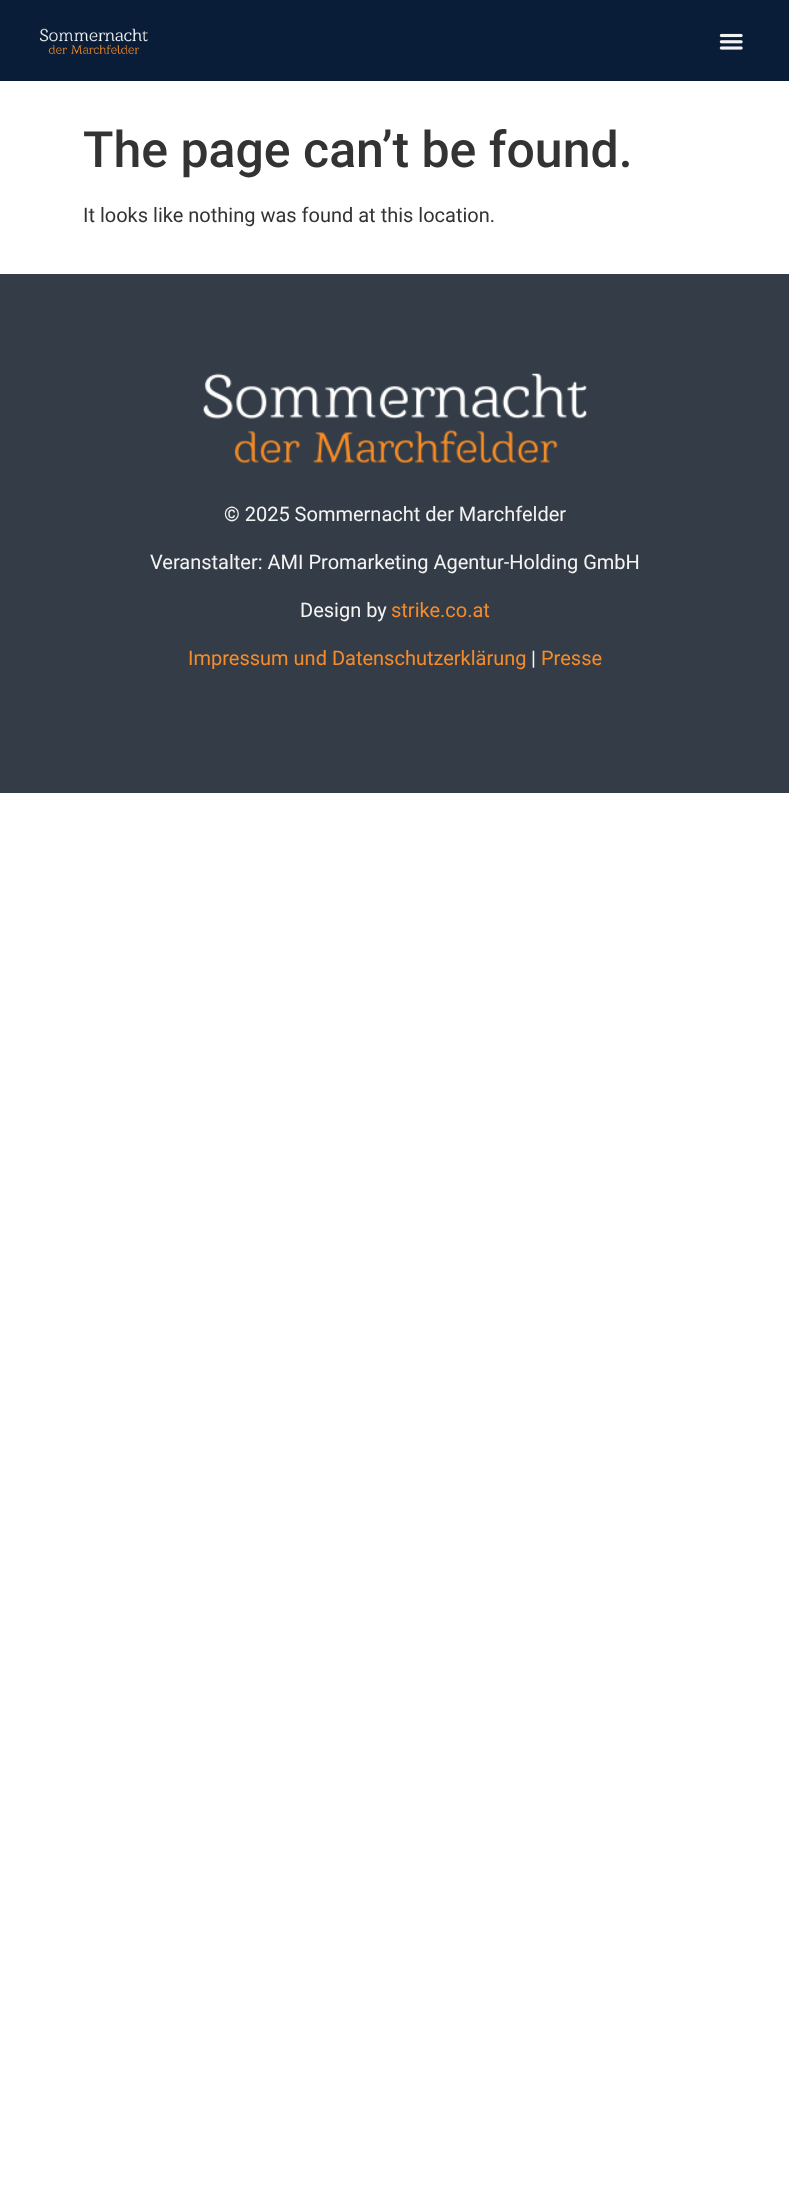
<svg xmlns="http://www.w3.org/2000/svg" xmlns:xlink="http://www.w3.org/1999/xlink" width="789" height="2198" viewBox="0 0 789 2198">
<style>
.cls-1{font:500 50px Roboto;fill:#333333}
.cls-2{font:20px Roboto;fill:#333333}
.cls-3{font:20px Roboto;fill:#f4f4f4}
.cls-4{font:20px Roboto;fill:#f68b2a}
</style>
<rect width="100%" height="100%" fill="#ffffff"/>
<rect fill="#091d38" x="0" y="0" width="789" height="81"/>
<image xlink:href="image0.png" x="39" y="28" width="109" height="26"/>
<image xlink:href="image1.png" x="719" y="33" width="24" height="17"/>
<rect fill="#343d47" x="0" y="274" width="789" height="519"/>
<image xlink:href="image2.png" x="203" y="373" width="384" height="90"/>
<text class="cls-1" x="83" y="167">The page can’t be found.</text>
<text class="cls-2" x="83" y="222">It looks like nothing was found at this location.</text>
<text class="cls-3" x="224" y="521">© 2025 Sommernacht der Marchfelder</text>
<text class="cls-3" x="150" y="569">Veranstalter: AMI Promarketing Agentur-Holding GmbH</text>
<text class="cls-3" x="300" y="617">Design by</text>
<text class="cls-4" x="391" y="617">strike.co.at</text>
<text class="cls-4" x="188" y="665">Impressum und Datenschutzerklärung</text>
<text class="cls-3" x="531" y="665">|</text>
<text class="cls-4" x="541" y="665">Presse</text>
</svg>
